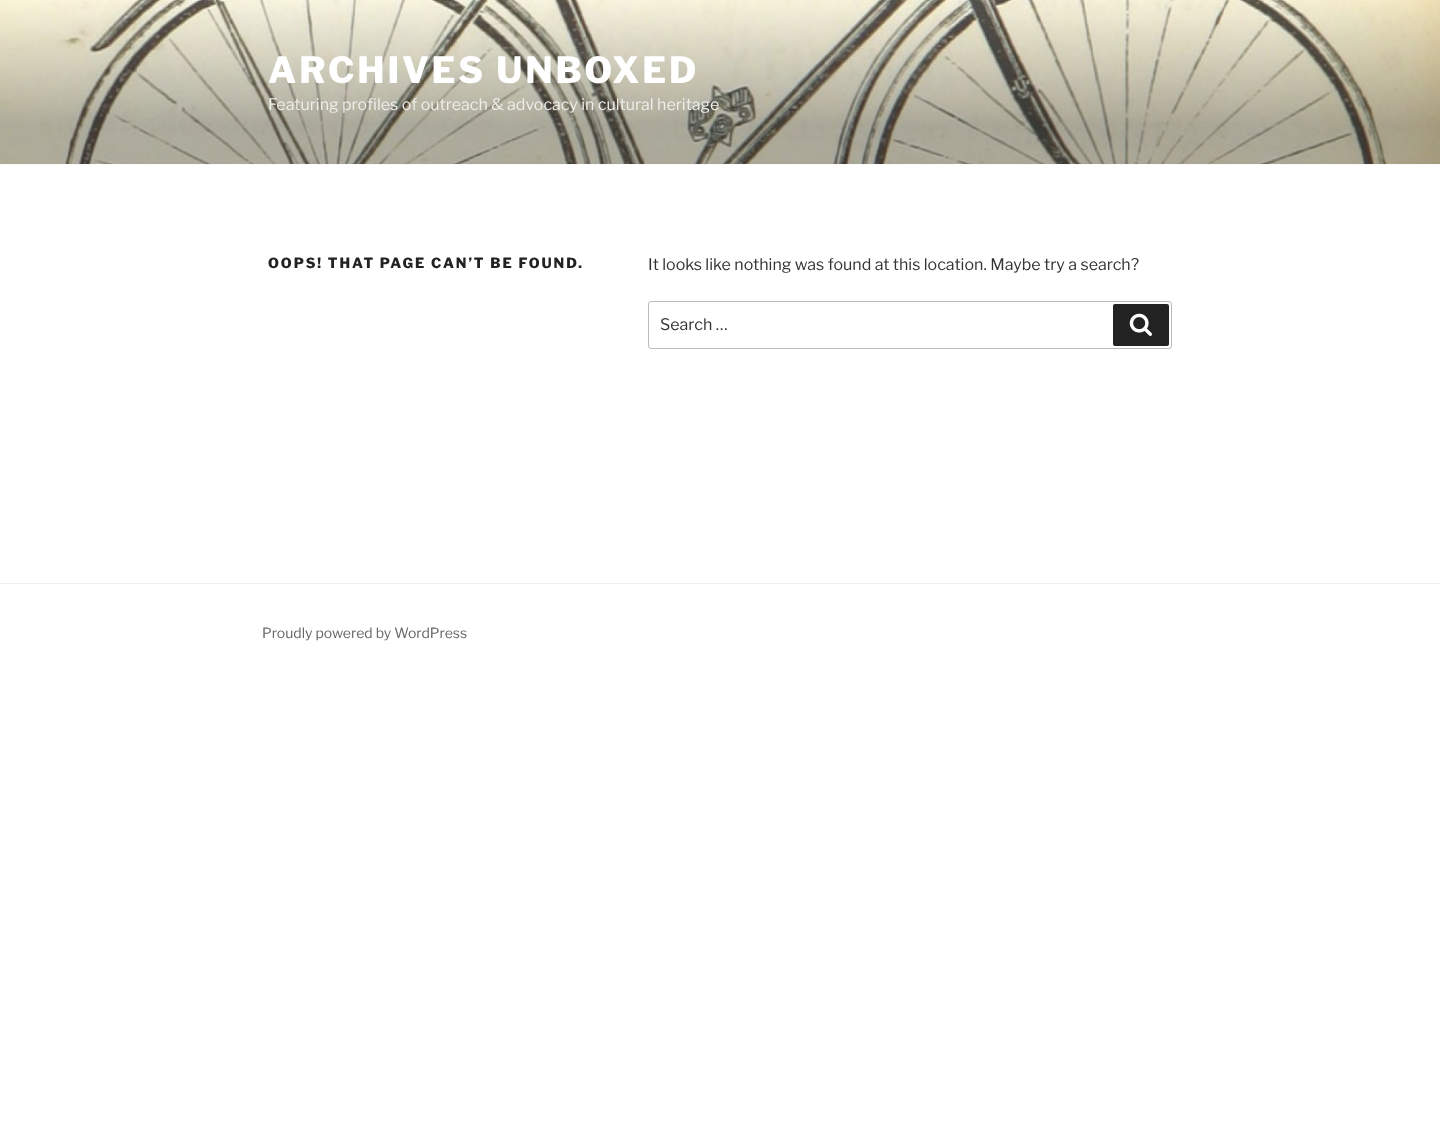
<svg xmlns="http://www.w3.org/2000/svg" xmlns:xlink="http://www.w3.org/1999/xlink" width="1440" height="1146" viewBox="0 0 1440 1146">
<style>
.cls-1{font:800 36px Libre Franklin;letter-spacing:2.9px;fill:#ffffff}
.cls-2{font:16px Libre Franklin;fill:#ededea}
.cls-3{font:800 14px Libre Franklin;letter-spacing:1.95px;fill:#222222}
.cls-4{font:16px Libre Franklin;fill:#333333}
.cls-5{font:14px Libre Franklin;fill:#666666}
</style>
<rect width="100%" height="100%" fill="#ffffff"/>
<rect fill="#fafafa" x="0" y="164" width="1440" height="1"/>
<image xlink:href="image0.png" x="0" y="0" width="1440" height="164"/>
<rect fill="none" stroke="#bbbbbb" x="648.5" y="301.5" width="523" height="47" rx="2.5"/>
<rect fill="#222222" x="1113" y="304" width="56" height="42" rx="2"/>
<image xlink:href="image1.png" x="1129" y="313" width="23" height="23"/>
<rect fill="#eeeeee" x="0" y="583" width="1440" height="1"/>
<text class="cls-1" x="268" y="83">ARCHIVES UNBOXED</text>
<text class="cls-2" x="268" y="110">Featuring profiles of outreach &amp; advocacy in cultural heritage</text>
<text class="cls-3" x="268" y="268">OOPS! THAT PAGE CAN’T BE FOUND.</text>
<text class="cls-4" x="648" y="270">It looks like nothing was found at this location. Maybe try a search?</text>
<text class="cls-4" x="660" y="330">Search …</text>
<text class="cls-5" x="262" y="638">Proudly powered by WordPress</text>
</svg>
